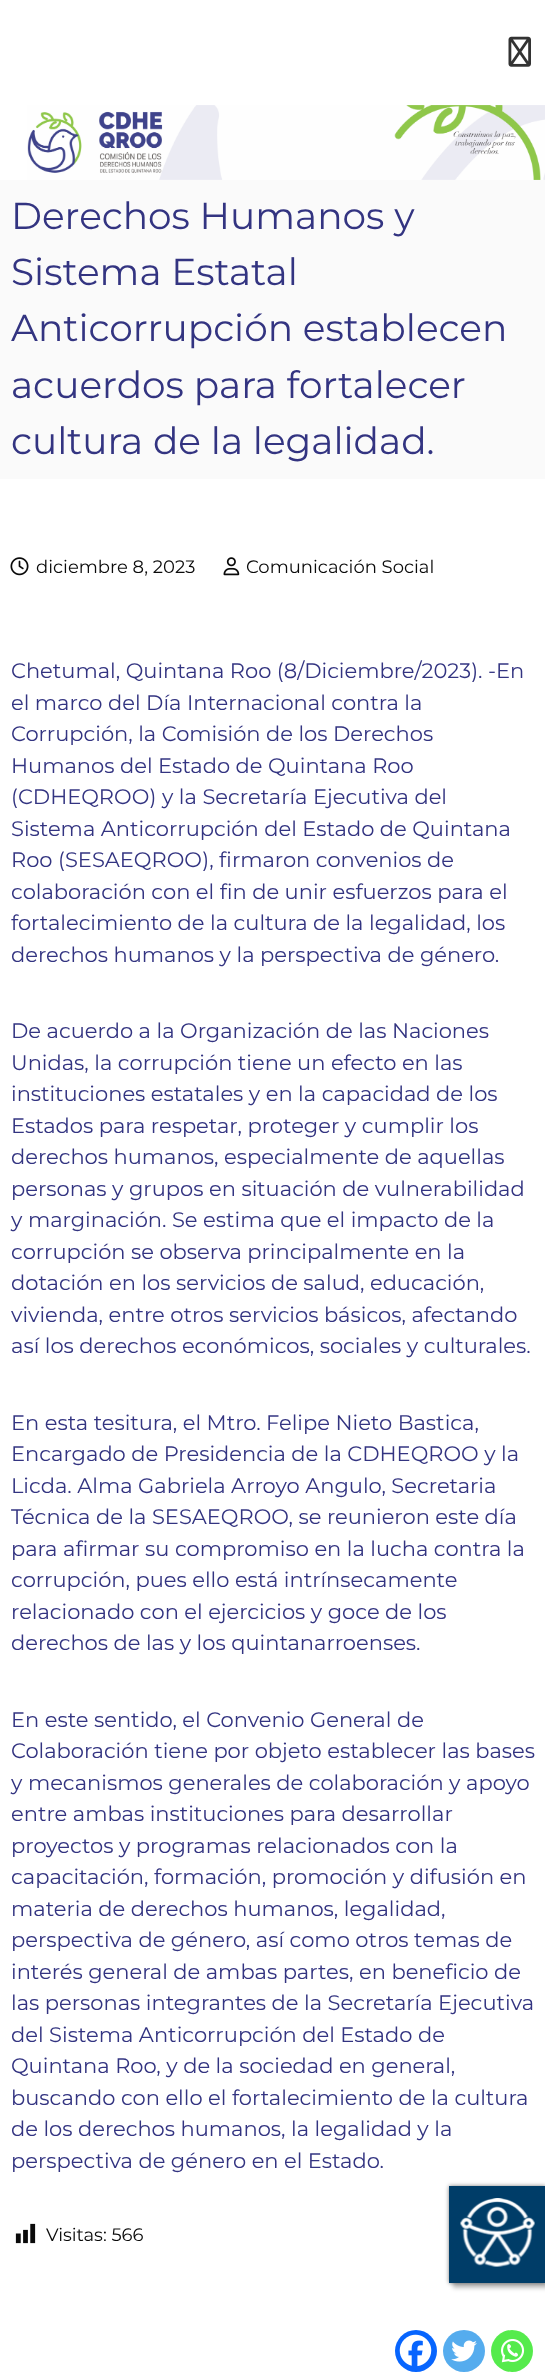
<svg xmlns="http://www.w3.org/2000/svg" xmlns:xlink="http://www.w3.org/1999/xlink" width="545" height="2372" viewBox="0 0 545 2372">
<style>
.cls-1{font:37.5px Montserrat;fill:#333481}
.cls-2{font:18px Montserrat;fill:#0a0a0a}
.cls-3{font:21px Montserrat;fill:#333481}
</style>
<rect width="100%" height="100%" fill="#ffffff"/>
<image xlink:href="image0.png" x="508" y="36" width="23" height="31"/>
<image xlink:href="image1.png" x="27" y="105" width="518" height="75"/>
<rect fill="#fafafa" x="0" y="180" width="545" height="299"/>
<image xlink:href="image2.png" x="10" y="557" width="19" height="19"/>
<image xlink:href="image3.png" x="223" y="557" width="17" height="19"/>
<image xlink:href="image4.png" x="15" y="2223" width="21" height="21"/>
<circle fill="#0765fe" cx="416" cy="2351" r="21"/>
<image xlink:href="image5.png" x="399" y="2334" width="33" height="33"/>
<circle fill="#55acee" cx="464" cy="2351" r="21"/>
<image xlink:href="image6.png" x="451" y="2340" width="26" height="22"/>
<circle fill="#55eb4c" cx="512" cy="2351" r="21"/>
<image xlink:href="image7.png" x="501" y="2339" width="24" height="24"/>
<rect fill="#000000" fill-opacity="0.25" filter="blur(2px)" x="453" y="2190" width="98" height="98"/>
<rect fill="#000000" fill-opacity="0.5" filter="blur(2px)" x="449" y="2186" width="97" height="97"/>
<rect fill="#003d68" x="449" y="2186" width="96" height="97"/>
<image xlink:href="image8.png" x="460" y="2198" width="75" height="69"/>
<text class="cls-1"><tspan x="11" y="229">Derechos Humanos y</tspan><tspan x="11" y="285">Sistema Estatal</tspan><tspan x="11" y="341">Anticorrupción establecen</tspan><tspan x="11" y="398">acuerdos para fortalecer</tspan><tspan x="11" y="454">cultura de la legalidad.</tspan></text>
<text class="cls-2" x="36" y="573">diciembre 8, 2023</text>
<text class="cls-2" x="246" y="573">Comunicación Social</text>
<text class="cls-3"><tspan x="11" y="678">Chetumal, Quintana Roo (8/Diciembre/2023). -En</tspan><tspan x="11" y="710">el marco del Día Internacional contra la</tspan><tspan x="11" y="741">Corrupción, la Comisión de los Derechos</tspan><tspan x="11" y="773">Humanos del Estado de Quintana Roo</tspan><tspan x="11" y="804">(CDHEQROO) y la Secretaría Ejecutiva del</tspan><tspan x="11" y="836">Sistema Anticorrupción del Estado de Quintana</tspan><tspan x="11" y="867">Roo (SESAEQROO), firmaron convenios de</tspan><tspan x="11" y="899">colaboración con el fin de unir esfuerzos para el</tspan><tspan x="11" y="930">fortalecimiento de la cultura de la legalidad, los</tspan><tspan x="11" y="962">derechos humanos y la perspectiva de género.</tspan></text>
<text class="cls-3"><tspan x="11" y="1038">De acuerdo a la Organización de las Naciones</tspan><tspan x="11" y="1070">Unidas, la corrupción tiene un efecto en las</tspan><tspan x="11" y="1101">instituciones estatales y en la capacidad de los</tspan><tspan x="11" y="1133">Estados para respetar, proteger y cumplir los</tspan><tspan x="11" y="1164">derechos humanos, especialmente de aquellas</tspan><tspan x="11" y="1196">personas y grupos en situación de vulnerabilidad</tspan><tspan x="11" y="1227">y marginación. Se estima que el impacto de la</tspan><tspan x="11" y="1259">corrupción se observa principalmente en la</tspan><tspan x="11" y="1290">dotación en los servicios de salud, educación,</tspan><tspan x="11" y="1322">vivienda, entre otros servicios básicos, afectando</tspan><tspan x="11" y="1353">así los derechos económicos, sociales y culturales.</tspan></text>
<text class="cls-3"><tspan x="11" y="1430">En esta tesitura, el Mtro. Felipe Nieto Bastica,</tspan><tspan x="11" y="1461">Encargado de Presidencia de la CDHEQROO y la</tspan><tspan x="11" y="1493">Licda. Alma Gabriela Arroyo Angulo, Secretaria</tspan><tspan x="11" y="1524">Técnica de la SESAEQROO, se reunieron este día</tspan><tspan x="11" y="1556">para afirmar su compromiso en la lucha contra la</tspan><tspan x="11" y="1587">corrupción, pues ello está intrínsecamente</tspan><tspan x="11" y="1619">relacionado con el ejercicios y goce de los</tspan><tspan x="11" y="1650">derechos de las y los quintanarroenses.</tspan></text>
<text class="cls-3"><tspan x="11" y="1727">En este sentido, el Convenio General de</tspan><tspan x="11" y="1758">Colaboración tiene por objeto establecer las bases</tspan><tspan x="11" y="1790">y mecanismos generales de colaboración y apoyo</tspan><tspan x="11" y="1821">entre ambas instituciones para desarrollar</tspan><tspan x="11" y="1853">proyectos y programas relacionados con la</tspan><tspan x="11" y="1884">capacitación, formación, promoción y difusión en</tspan><tspan x="11" y="1916">materia de derechos humanos, legalidad,</tspan><tspan x="11" y="1947">perspectiva de género, así como otros temas de</tspan><tspan x="11" y="1979">interés general de ambas partes, en beneficio de</tspan><tspan x="11" y="2010">las personas integrantes de la Secretaría Ejecutiva</tspan><tspan x="11" y="2042">del Sistema Anticorrupción del Estado de</tspan><tspan x="11" y="2073">Quintana Roo, y de la sociedad en general,</tspan><tspan x="11" y="2105">buscando con ello el fortalecimiento de la cultura</tspan><tspan x="11" y="2136">de los derechos humanos, la legalidad y la</tspan><tspan x="11" y="2168">perspectiva de género en el Estado.</tspan></text>
<text class="cls-2" x="46" y="2241">Visitas: 566</text>
</svg>
